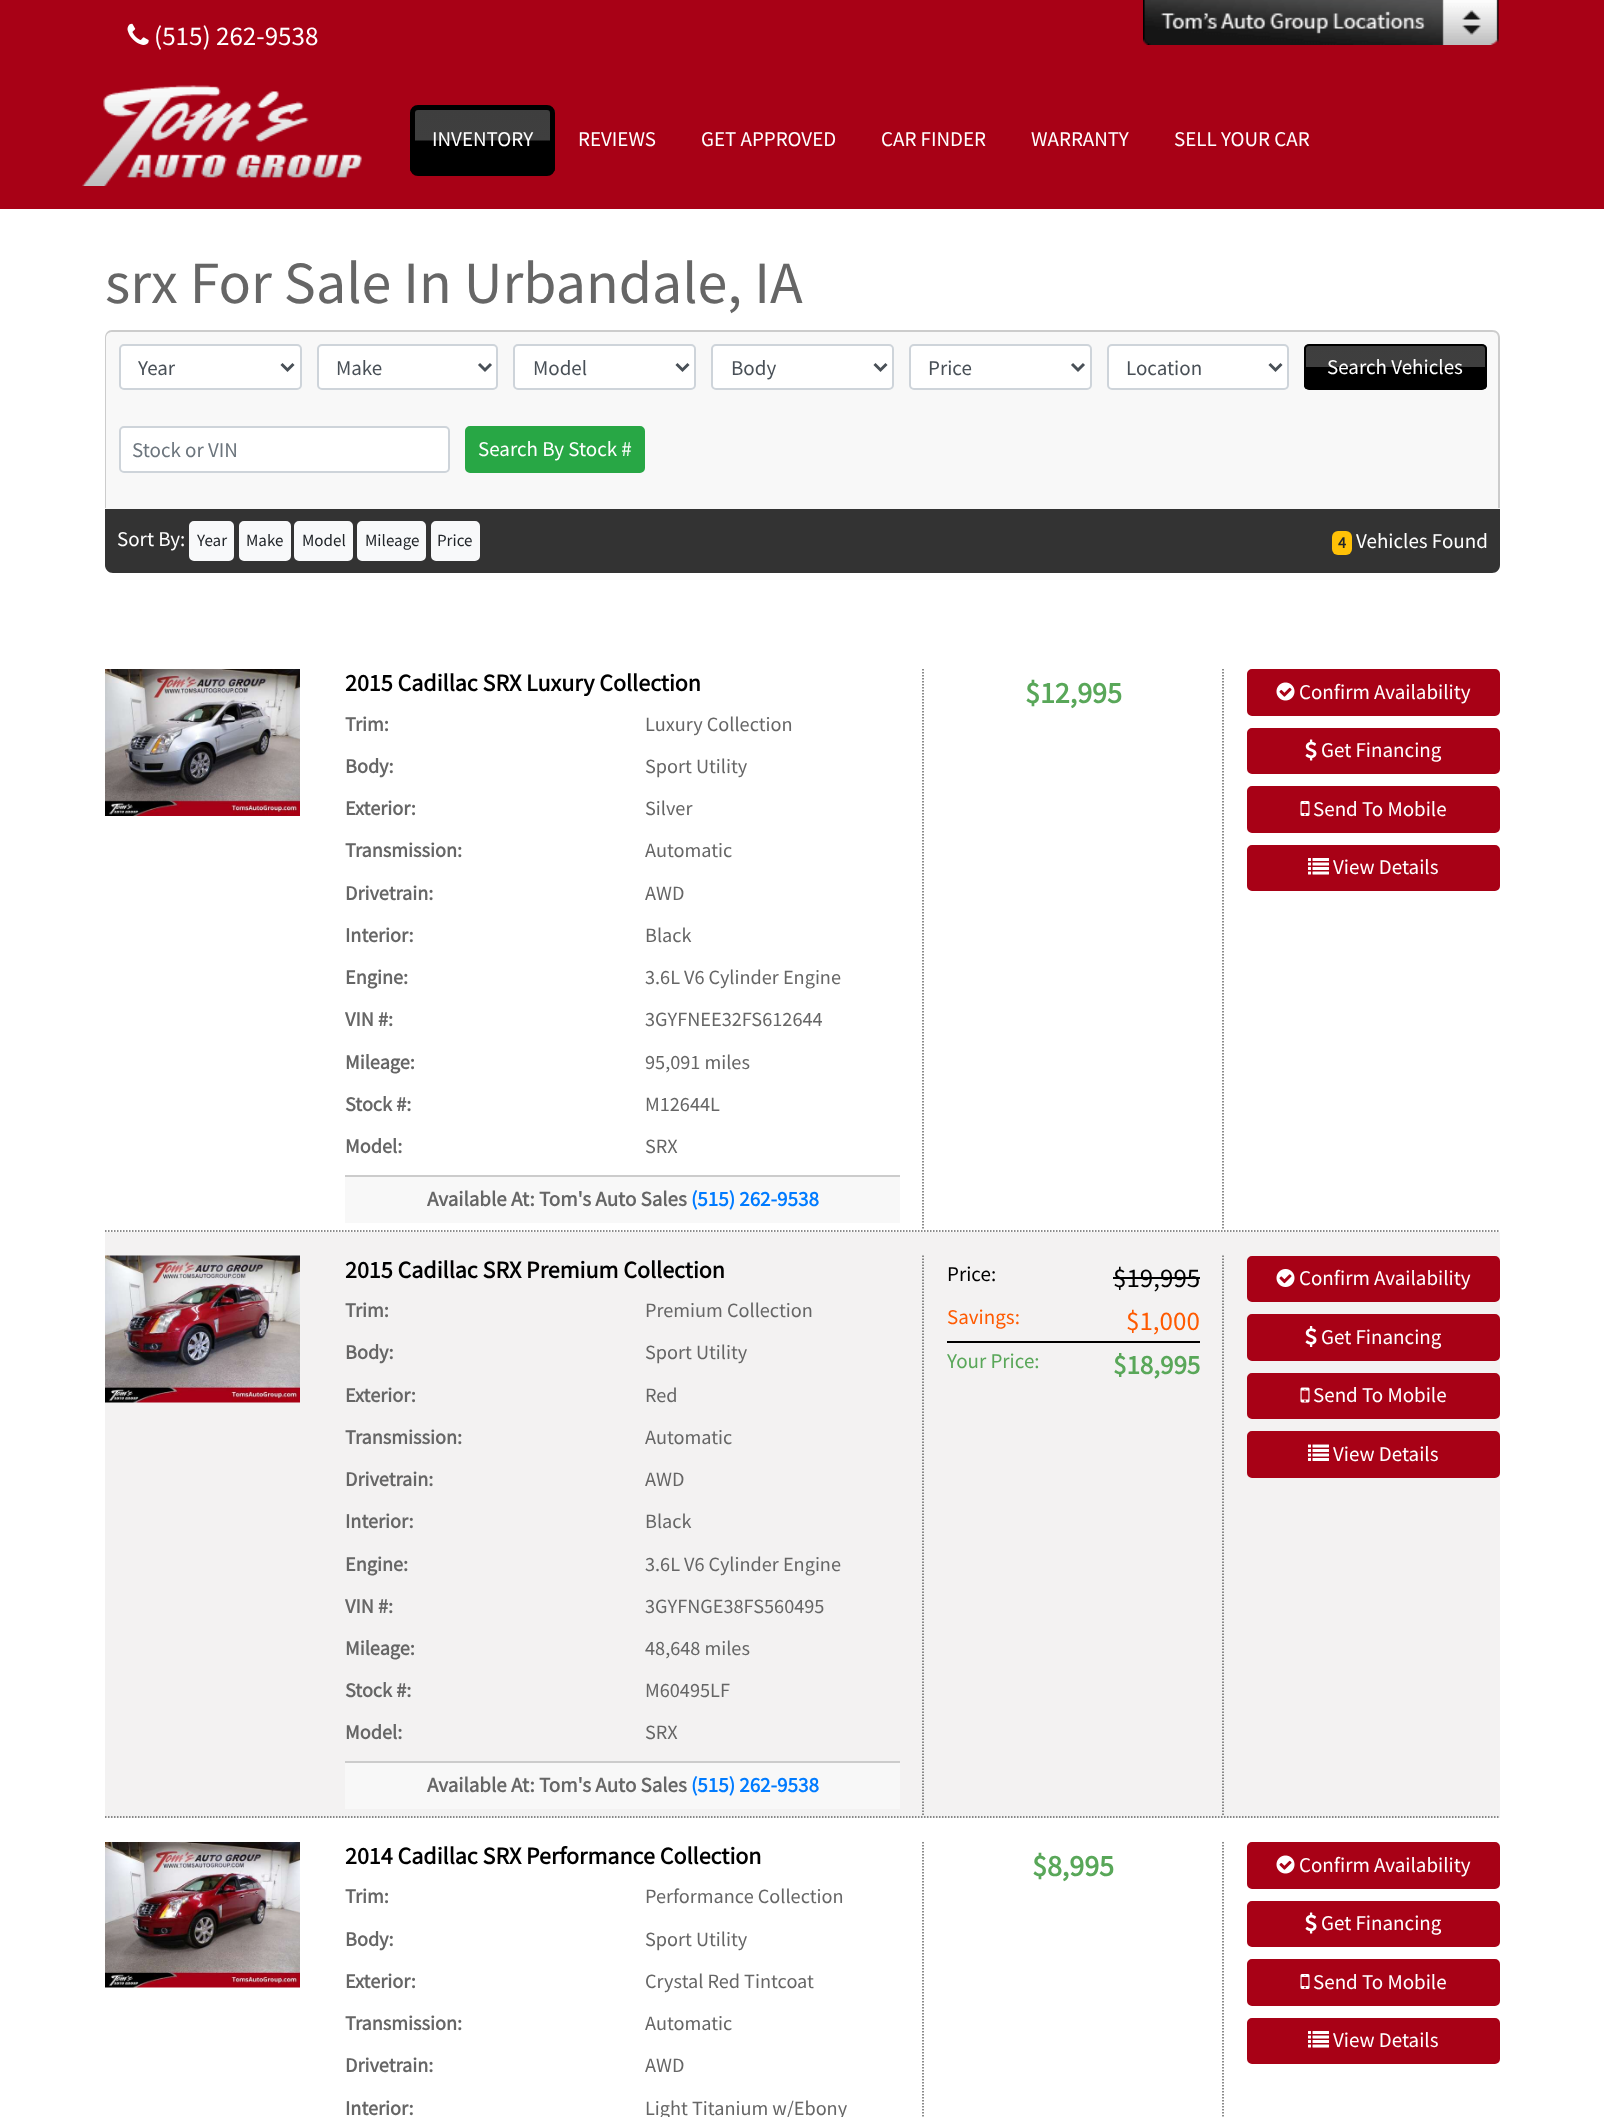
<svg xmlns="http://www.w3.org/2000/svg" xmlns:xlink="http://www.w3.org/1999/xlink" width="1604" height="2117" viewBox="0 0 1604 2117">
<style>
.cls-1{font:27px Source Sans Pro;fill:#ffffff}
.cls-2{font:21px Source Sans Pro;fill:#ffffff}
.cls-3{font:60px Source Sans Pro;fill:#666666}
.cls-4{font:21px Source Sans Pro;fill:#495057}
.cls-5{font:21px Source Sans Pro;fill:#6c757d}
.cls-6{font:17px Source Sans Pro;fill:#212529}
.cls-7{font:bold 16px Source Sans Pro;fill:#212529}
.cls-8{font:bold 24px Source Sans Pro;fill:#000000}
.cls-9{font:bold 20.25px Source Sans Pro;fill:#666666}
.cls-10{font:20.25px Source Sans Pro;fill:#666666}
.cls-11{font:bold 21px Source Sans Pro;fill:#666666}
.cls-12{font:bold 21px Source Sans Pro;fill:#007bff}
.cls-13{font:bold 30px Source Sans Pro;fill:#59a759}
.cls-14{font:21px Source Sans Pro;fill:#000000}
.cls-15{font:27px Source Sans Pro;fill:#000000}
.cls-16{font:21px Source Sans Pro;fill:#ff5a00}
.cls-17{font:27px Source Sans Pro;fill:#ff5a00}
.cls-18{font:21px Source Sans Pro;fill:#59a759}
.cls-19{font:bold 27px Source Sans Pro;fill:#59a759}
</style>
<defs>
<clipPath id="clip1"><rect x="410" y="105" width="145" height="71" rx="8"/></clipPath>
<linearGradient id="g1" gradientUnits="userSpaceOnUse" x1="482" y1="110" x2="482" y2="171"><stop offset="0" stop-color="#3e3e3e"/><stop offset="0.49" stop-color="#3f3f3f"/><stop offset="0.51" stop-color="#000000"/><stop offset="1" stop-color="#000000"/></linearGradient>
<clipPath id="clip2"><rect x="1304" y="344" width="183" height="46" rx="5"/></clipPath>
<linearGradient id="g2" gradientUnits="userSpaceOnUse" x1="1395" y1="345" x2="1395" y2="389"><stop offset="0" stop-color="#3e3e3e"/><stop offset="0.49" stop-color="#3f3f3f"/><stop offset="0.51" stop-color="#000000"/><stop offset="1" stop-color="#000000"/></linearGradient>
</defs>
<rect width="100%" height="100%" fill="#ffffff"/>
<rect fill="#a80116" x="0" y="0" width="1604" height="209"/>
<image xlink:href="image0.png" x="127" y="23" width="22" height="22"/>
<image xlink:href="image1.png" x="1143" y="0" width="356" height="45"/>
<image xlink:href="image2.png" x="82" y="85" width="280" height="101"/>
<g clip-path="url(#clip1)">
<rect fill="url(#g1)" x="410" y="110" width="145" height="61"/>
</g>
<rect fill="none" stroke="#000000" stroke-width="5" x="412.5" y="107.5" width="140" height="66" rx="5.5"/>
<path fill="#f8f8f8" d="M113 330H1492C1496.5 330 1500 333.5 1500 338V509H105V338C105 333.5 108.5 330 113 330Z"/>
<path fill="#cccccc" fill-rule="evenodd" d="M112 330H1492C1497 330 1500 333 1500 338V508H105V338C105 333 108 330 112 330ZM112 332H1492C1496 332 1498 334 1498 338V508H106V338C106 334 109 332 112 332Z"/>
<rect fill="#ffffff" stroke="#ced4da" stroke-width="2" x="120" y="345" width="181" height="44" rx="4"/>
<path fill="none" stroke="#495057" stroke-width="3" d="M281.5 364L287.5 370L293.5 364"/>
<rect fill="#ffffff" stroke="#ced4da" stroke-width="2" x="318" y="345" width="179" height="44" rx="4"/>
<path fill="none" stroke="#495057" stroke-width="3" d="M479 364L485 370L491 364"/>
<rect fill="#ffffff" stroke="#ced4da" stroke-width="2" x="514" y="345" width="181" height="44" rx="4"/>
<path fill="none" stroke="#495057" stroke-width="3" d="M676.5 364L682.5 370L688.5 364"/>
<rect fill="#ffffff" stroke="#ced4da" stroke-width="2" x="712" y="345" width="181" height="44" rx="4"/>
<path fill="none" stroke="#495057" stroke-width="3" d="M874.5 364L880.5 370L886.5 364"/>
<rect fill="#ffffff" stroke="#ced4da" stroke-width="2" x="910" y="345" width="181" height="44" rx="4"/>
<path fill="none" stroke="#495057" stroke-width="3" d="M1072 364L1078 370L1084 364"/>
<rect fill="#ffffff" stroke="#ced4da" stroke-width="2" x="1108" y="345" width="180" height="44" rx="4"/>
<path fill="none" stroke="#495057" stroke-width="3" d="M1269.5 364L1275.5 370L1281.5 364"/>
<g clip-path="url(#clip2)">
<rect fill="url(#g2)" x="1304" y="345" width="183" height="44"/>
</g>
<rect fill="none" stroke="#000000" stroke-width="2" x="1305" y="345" width="181" height="44" rx="4"/>
<rect fill="#ffffff" stroke="#ced4da" stroke-width="2" x="120" y="427" width="329" height="45" rx="4"/>
<rect fill="#28a745" stroke="#28a745" stroke-width="2" x="466" y="427" width="178" height="45" rx="4"/>
<path fill="#333333" d="M105 509H1500V565C1500 569.5 1496.5 573 1492 573H113C108.5 573 105 569.5 105 565Z"/>
<rect fill="#f8f9fa" stroke="#f8f9fa" stroke-width="2" x="190" y="522" width="43" height="38" rx="4"/>
<rect fill="#f8f9fa" stroke="#f8f9fa" stroke-width="2" x="240" y="522" width="50" height="38" rx="4"/>
<rect fill="#f8f9fa" stroke="#f8f9fa" stroke-width="2" x="295" y="522" width="57" height="38" rx="4"/>
<rect fill="#f8f9fa" stroke="#f8f9fa" stroke-width="2" x="358" y="522" width="67" height="38" rx="4"/>
<rect fill="#f8f9fa" stroke="#f8f9fa" stroke-width="2" x="432" y="522" width="47" height="38" rx="4"/>
<rect fill="#ffc107" x="1332" y="531" width="20" height="24" rx="6"/>
<path fill="none" stroke="#666666" stroke-width="1.5" stroke-dasharray="1.5 1.5" d="M105 1231H1500"/>
<image xlink:href="image3.png" x="105" y="669" width="195" height="147"/>
<rect fill="#f8f8f8" x="345" y="1177" width="555" height="46"/>
<rect fill="#cccccc" x="345" y="1175" width="555" height="2"/>
<path fill="none" stroke="#666666" stroke-width="1.5" stroke-dasharray="1.5 1.5" d="M1223 669V1230"/>
<path fill="none" stroke="#666666" stroke-width="1.5" stroke-dasharray="1.5 1.5" d="M923 669V1230"/>
<rect fill="#a80116" stroke="#a80116" stroke-width="2" x="1248" y="670" width="251" height="45" rx="4"/>
<image xlink:href="image4.png" x="1276" y="682" width="19" height="19"/>
<rect fill="#a80116" stroke="#a80116" stroke-width="2" x="1248" y="729" width="251" height="44" rx="4"/>
<image xlink:href="image5.png" x="1305" y="739" width="12" height="22"/>
<rect fill="#a80116" stroke="#a80116" stroke-width="2" x="1248" y="787" width="251" height="45" rx="4"/>
<image xlink:href="image6.png" x="1300" y="801" width="10" height="15"/>
<rect fill="#a80116" stroke="#a80116" stroke-width="2" x="1248" y="846" width="251" height="44" rx="4"/>
<image xlink:href="image7.png" x="1308" y="858" width="21" height="17"/>
<rect fill="#f3f2f2" x="105" y="1232" width="1395" height="586"/>
<path fill="none" stroke="#666666" stroke-width="1.5" stroke-dasharray="1.5 1.5" d="M105 1817H1500"/>
<image xlink:href="image8.png" x="105" y="1255" width="195" height="148"/>
<rect fill="#f8f8f8" x="345" y="1763" width="555" height="46"/>
<rect fill="#cccccc" x="345" y="1761" width="555" height="2"/>
<path fill="none" stroke="#666666" stroke-width="1.5" stroke-dasharray="1.5 1.5" d="M1223 1255.5V1816.5"/>
<path fill="none" stroke="#666666" stroke-width="1.5" stroke-dasharray="1.5 1.5" d="M923 1255.5V1816.5"/>
<rect fill="#000000" x="1113" y="1277" width="87" height="2"/>
<rect fill="#000000" x="947" y="1341" width="253" height="2"/>
<rect fill="#a80116" stroke="#a80116" stroke-width="2" x="1248" y="1257" width="251" height="44" rx="4"/>
<image xlink:href="image9.png" x="1276" y="1269" width="19" height="18"/>
<rect fill="#a80116" stroke="#a80116" stroke-width="2" x="1248" y="1315" width="251" height="45" rx="4"/>
<image xlink:href="image10.png" x="1305" y="1326" width="12" height="21"/>
<rect fill="#a80116" stroke="#a80116" stroke-width="2" x="1248" y="1374" width="251" height="44" rx="4"/>
<image xlink:href="image11.png" x="1300" y="1387" width="10" height="16"/>
<rect fill="#a80116" stroke="#a80116" stroke-width="2" x="1248" y="1432" width="251" height="45" rx="4"/>
<image xlink:href="image12.png" x="1308" y="1444" width="21" height="17"/>
<image xlink:href="image13.png" x="105" y="1842" width="195" height="146"/>
<path fill="none" stroke="#666666" stroke-width="1.5" stroke-dasharray="1.5 1.5" d="M1223 1842V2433"/>
<path fill="none" stroke="#666666" stroke-width="1.5" stroke-dasharray="1.5 1.5" d="M923 1842V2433"/>
<rect fill="#a80116" stroke="#a80116" stroke-width="2" x="1248" y="1843" width="251" height="45" rx="4"/>
<image xlink:href="image4.png" x="1276" y="1855" width="19" height="19"/>
<rect fill="#a80116" stroke="#a80116" stroke-width="2" x="1248" y="1902" width="251" height="44" rx="4"/>
<image xlink:href="image5.png" x="1305" y="1912" width="12" height="22"/>
<rect fill="#a80116" stroke="#a80116" stroke-width="2" x="1248" y="1960" width="251" height="45" rx="4"/>
<image xlink:href="image6.png" x="1300" y="1974" width="10" height="15"/>
<rect fill="#a80116" stroke="#a80116" stroke-width="2" x="1248" y="2019" width="251" height="44" rx="4"/>
<image xlink:href="image7.png" x="1308" y="2031" width="21" height="17"/>
<text class="cls-1" x="154" y="45">(515) 262-9538</text>
<text class="cls-2" x="432" y="146">INVENTORY</text>
<text class="cls-2" x="578" y="146">REVIEWS</text>
<text class="cls-2" x="701" y="146">GET APPROVED</text>
<text class="cls-2" x="881" y="146">CAR FINDER</text>
<text class="cls-2" x="1031" y="146">WARRANTY</text>
<text class="cls-2" x="1174" y="146">SELL YOUR CAR</text>
<text class="cls-3" x="105" y="303">srx For Sale In Urbandale, IA</text>
<text class="cls-4" x="138" y="375">Year</text>
<text class="cls-4" x="336" y="375">Make</text>
<text class="cls-4" x="533" y="375">Model</text>
<text class="cls-4" x="731" y="375">Body</text>
<text class="cls-4" x="928" y="375">Price</text>
<text class="cls-4" x="1126" y="375">Location</text>
<text class="cls-2" x="1327" y="374">Search Vehicles</text>
<text class="cls-5" x="132" y="457">Stock or VIN</text>
<text class="cls-2" x="478" y="456">Search By Stock #</text>
<text class="cls-2" x="117" y="546">Sort By:</text>
<text class="cls-6" x="197" y="546">Year</text>
<text class="cls-6" x="246" y="546">Make</text>
<text class="cls-6" x="302" y="546">Model</text>
<text class="cls-6" x="365" y="546">Mileage</text>
<text class="cls-6" x="437" y="546">Price</text>
<text class="cls-7" x="1338" y="548">4</text>
<text class="cls-2" x="1356" y="548">Vehicles Found</text>
<text class="cls-8" x="345" y="691">2015 Cadillac SRX Luxury Collection</text>
<text class="cls-9" x="345" y="731">Trim:</text>
<text class="cls-10" x="645" y="731">Luxury Collection</text>
<text class="cls-9" x="345" y="773">Body:</text>
<text class="cls-10" x="645" y="773">Sport Utility</text>
<text class="cls-9" x="345" y="815">Exterior:</text>
<text class="cls-10" x="645" y="815">Silver</text>
<text class="cls-9" x="345" y="857">Transmission:</text>
<text class="cls-10" x="645" y="857">Automatic</text>
<text class="cls-9" x="345" y="900">Drivetrain:</text>
<text class="cls-10" x="645" y="900">AWD</text>
<text class="cls-9" x="345" y="942">Interior:</text>
<text class="cls-10" x="645" y="942">Black</text>
<text class="cls-9" x="345" y="984">Engine:</text>
<text class="cls-10" x="645" y="984">3.6L V6 Cylinder Engine</text>
<text class="cls-9" x="345" y="1026">VIN #:</text>
<text class="cls-10" x="645" y="1026">3GYFNEE32FS612644</text>
<text class="cls-9" x="345" y="1069">Mileage:</text>
<text class="cls-10" x="645" y="1069">95,091 miles</text>
<text class="cls-9" x="345" y="1111">Stock #:</text>
<text class="cls-10" x="645" y="1111">M12644L</text>
<text class="cls-9" x="345" y="1153">Model:</text>
<text class="cls-10" x="645" y="1153">SRX</text>
<text class="cls-11" x="427" y="1206">Available At: Tom's Auto Sales</text>
<text class="cls-12" x="691" y="1206">(515) 262-9538</text>
<text class="cls-13" x="1025" y="703">$12,995</text>
<text class="cls-2" x="1299" y="699">Confirm Availability</text>
<text class="cls-2" x="1321" y="757">Get Financing</text>
<text class="cls-2" x="1313" y="816">Send To Mobile</text>
<text class="cls-2" x="1333" y="874">View Details</text>
<text class="cls-8" x="345" y="1278">2015 Cadillac SRX Premium Collection</text>
<text class="cls-9" x="345" y="1317">Trim:</text>
<text class="cls-10" x="645" y="1317">Premium Collection</text>
<text class="cls-9" x="345" y="1359">Body:</text>
<text class="cls-10" x="645" y="1359">Sport Utility</text>
<text class="cls-9" x="345" y="1402">Exterior:</text>
<text class="cls-10" x="645" y="1402">Red</text>
<text class="cls-9" x="345" y="1444">Transmission:</text>
<text class="cls-10" x="645" y="1444">Automatic</text>
<text class="cls-9" x="345" y="1486">Drivetrain:</text>
<text class="cls-10" x="645" y="1486">AWD</text>
<text class="cls-9" x="345" y="1528">Interior:</text>
<text class="cls-10" x="645" y="1528">Black</text>
<text class="cls-9" x="345" y="1571">Engine:</text>
<text class="cls-10" x="645" y="1571">3.6L V6 Cylinder Engine</text>
<text class="cls-9" x="345" y="1613">VIN #:</text>
<text class="cls-10" x="645" y="1613">3GYFNGE38FS560495</text>
<text class="cls-9" x="345" y="1655">Mileage:</text>
<text class="cls-10" x="645" y="1655">48,648 miles</text>
<text class="cls-9" x="345" y="1697">Stock #:</text>
<text class="cls-10" x="645" y="1697">M60495LF</text>
<text class="cls-9" x="345" y="1739">Model:</text>
<text class="cls-10" x="645" y="1739">SRX</text>
<text class="cls-11" x="427" y="1792">Available At: Tom's Auto Sales</text>
<text class="cls-12" x="691" y="1792">(515) 262-9538</text>
<text class="cls-14" x="947" y="1281">Price:</text>
<text class="cls-15" x="1113" y="1287">$19,995</text>
<text class="cls-16" x="947" y="1324">Savings:</text>
<text class="cls-17" x="1126" y="1330">$1,000</text>
<text class="cls-18" x="947" y="1368">Your Price:</text>
<text class="cls-19" x="1113" y="1374">$18,995</text>
<text class="cls-2" x="1299" y="1285">Confirm Availability</text>
<text class="cls-2" x="1321" y="1344">Get Financing</text>
<text class="cls-2" x="1313" y="1402">Send To Mobile</text>
<text class="cls-2" x="1333" y="1461">View Details</text>
<text class="cls-8" x="345" y="1864">2014 Cadillac SRX Performance Collection</text>
<text class="cls-9" x="345" y="1903">Trim:</text>
<text class="cls-10" x="645" y="1903">Performance Collection</text>
<text class="cls-9" x="345" y="1946">Body:</text>
<text class="cls-10" x="645" y="1946">Sport Utility</text>
<text class="cls-9" x="345" y="1988">Exterior:</text>
<text class="cls-10" x="645" y="1988">Crystal Red Tintcoat</text>
<text class="cls-9" x="345" y="2030">Transmission:</text>
<text class="cls-10" x="645" y="2030">Automatic</text>
<text class="cls-9" x="345" y="2072">Drivetrain:</text>
<text class="cls-10" x="645" y="2072">AWD</text>
<text class="cls-9" x="345" y="2115">Interior:</text>
<text class="cls-10" x="645" y="2115">Light Titanium w/Ebony</text>
<text class="cls-13" x="1032" y="1876">$8,995</text>
<text class="cls-2" x="1299" y="1872">Confirm Availability</text>
<text class="cls-2" x="1321" y="1930">Get Financing</text>
<text class="cls-2" x="1313" y="1989">Send To Mobile</text>
<text class="cls-2" x="1333" y="2047">View Details</text>
</svg>
